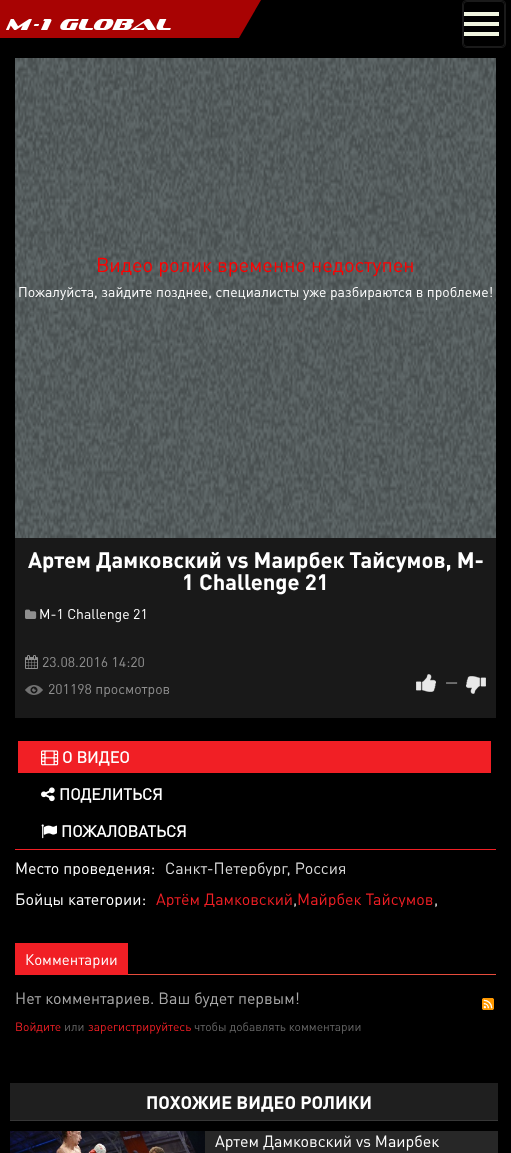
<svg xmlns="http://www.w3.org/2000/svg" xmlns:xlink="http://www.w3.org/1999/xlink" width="511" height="1153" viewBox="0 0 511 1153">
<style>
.cls-1{font:italic 16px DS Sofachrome;fill:#ffffff}
.cls-2{font:20px DIN;fill:#ff0000}
.cls-3{font:14px DIN;fill:#ffffff}
.cls-4{font:bold 22px 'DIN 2';fill:#ffffff}
.cls-5{font:14px DIN;fill:#8f8f8f}
.cls-6{font:bold 14px DIN;fill:#8f8f8f}
.cls-7{font:bold 16px DIN;fill:#ffffff}
.cls-8{font:16px DIN;fill:#ffffff}
.cls-9{font:16px DIN;fill:#dbdbdb}
.cls-10{font:16px DIN;fill:#f11f25}
.cls-11{font:15px DIN;fill:#ffffff}
.cls-12{font:16px DIN;fill:#aaaaaa}
.cls-13{font:12px DIN;fill:#f11f25}
.cls-14{font:12px DIN;fill:#666666}
.cls-15{font:bold 18px 'DIN 2';fill:#ffffff}
</style>
<defs>
<clipPath id="clip1"><rect x="15" y="860" width="481" height="16"/></clipPath>
<clipPath id="clip2"><rect x="15" y="891" width="481" height="16"/></clipPath>
</defs>
<rect width="100%" height="100%" fill="#000000"/>
<path fill="#a80303" d="M-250 0H261L239 38H-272Z"/>
<rect fill="none" stroke="#1a1a1a" x="462.5" y="0.5" width="43" height="47" rx="3.5"/>
<rect fill="none" stroke="#ffffff" stroke-opacity="0.1" x="463.5" y="1.5" width="41" height="45" rx="3.5"/>
<rect fill="#f1f5e0" x="464" y="22" width="35" height="4"/>
<rect fill="#f1f5e0" x="464" y="12" width="35" height="4"/>
<rect fill="#f1f5e0" x="464" y="32" width="35" height="4"/>
<rect fill="#636c6d" x="15" y="58" width="481" height="480"/>
<image xlink:href="image0.png" x="15" y="58" width="481" height="480"/>
<rect fill="#191919" x="15" y="538" width="481" height="180"/>
<image xlink:href="image1.png" x="25" y="609" width="12" height="10"/>
<image xlink:href="image2.png" x="25" y="655" width="13" height="14"/>
<image xlink:href="image3.png" x="25" y="685" width="18" height="10"/>
<image xlink:href="image4.png" x="416" y="674" width="20" height="18"/>
<image xlink:href="image5.png" x="466" y="676" width="20" height="18"/>
<rect fill="#f11f25" x="15" y="849" width="481" height="1"/>
<rect fill="#f11f25" x="18" y="741" width="473" height="32"/>
<image xlink:href="image6.png" x="41" y="750" width="18" height="16"/>
<image xlink:href="image7.png" x="41" y="787" width="14" height="15"/>
<image xlink:href="image8.png" x="41" y="824" width="16" height="15"/>
<rect fill="#e74c3c" x="128" y="974" width="368" height="1"/>
<rect fill="#f11f25" x="15" y="943" width="113" height="32"/>
<image xlink:href="image9.png" x="482" y="998" width="12" height="12"/>
<rect fill="#1f1f1f" x="10" y="1083" width="488" height="37"/>
<rect fill="#373737" x="10" y="1120" width="488" height="1"/>
<rect fill="#272727" x="205" y="1131" width="293" height="22"/>
<image xlink:href="image10.png" x="10" y="1131" width="195" height="22"/>
<text class="cls-1" x="5" y="30">M-1 GLOBAL</text>
<text class="cls-2" x="96" y="272">Видео ролик временно недоступен</text>
<text class="cls-3" x="18" y="297">Пожалуйста, зайдите позднее, специалисты уже разбираются в проблеме!</text>
<text class="cls-4" x="28" y="568">Артем Дамковский vs Маирбек Тайсумов, M-</text>
<text class="cls-4" x="182" y="590">1 Challenge 21</text>
<text class="cls-3" x="39" y="619">M-1 Challenge 21</text>
<text class="cls-5" x="42" y="667">23.08.2016 14:20</text>
<text class="cls-5" x="48" y="694">201198 просмотров</text>
<text class="cls-6" x="445" y="687">—</text>
<text class="cls-7" x="62" y="763">О ВИДЕО</text>
<text class="cls-7" x="59" y="800">ПОДЕЛИТЬСЯ</text>
<text class="cls-7" x="61" y="837">ПОЖАЛОВАТЬСЯ</text>
<g clip-path="url(#clip1)">
<text class="cls-8" x="15" y="874">Место проведения:</text>
<text class="cls-9" x="165" y="874">Санкт-Петербург, Россия</text>
</g>
<g clip-path="url(#clip2)">
<text class="cls-8" x="15" y="905">Бойцы категории:</text>
<text class="cls-10" x="156" y="905">Артём Дамковский Майрбек Тайсумов</text>
</g>
<text class="cls-9" x="293" y="905">,</text>
<text class="cls-9" x="434" y="905">,</text>
<text class="cls-11" x="25" y="965">Комментарии</text>
<text class="cls-12" x="15" y="1004">Нет комментариев. Ваш будет первым!</text>
<text class="cls-13" x="15" y="1031">Войдите</text>
<text class="cls-14" x="64" y="1031">или</text>
<text class="cls-13" x="88" y="1031">зарегистрируйтесь</text>
<text class="cls-14" x="194" y="1031">чтобы добавлять комментарии</text>
<text class="cls-15" x="146" y="1109">ПОХОЖИЕ ВИДЕО РОЛИКИ</text>
<text class="cls-8" x="215" y="1147">Артем Дамковский vs Маирбек</text>
</svg>
